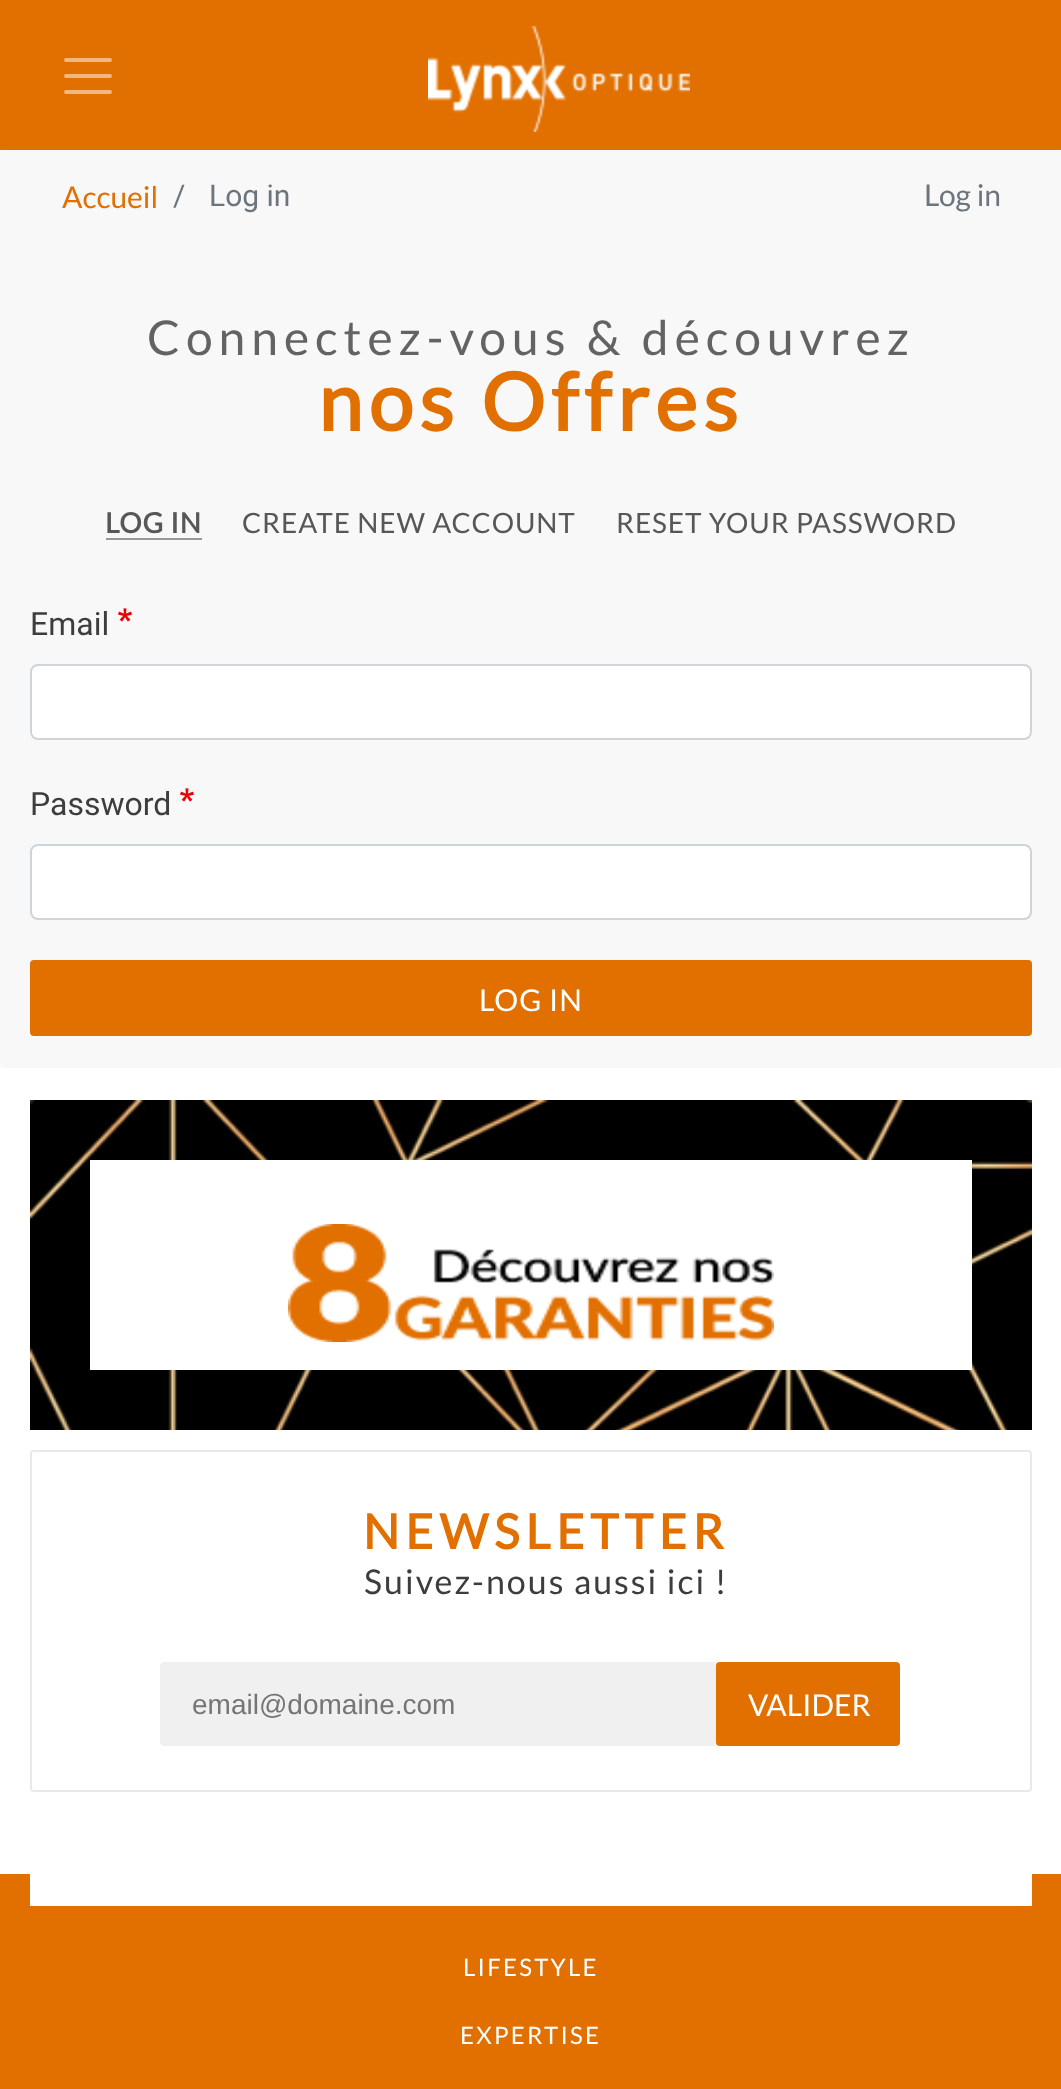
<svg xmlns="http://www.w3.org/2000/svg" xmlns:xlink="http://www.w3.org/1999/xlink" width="1061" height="2089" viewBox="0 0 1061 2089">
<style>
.cls-1{font:30px Lato;fill:#e17000}
.cls-2{font:30px Roboto;fill:#6c757d}
.cls-3{font:30px Lato;fill:#6c757d}
.cls-4{font:48px Lato;letter-spacing:6px;fill:#636363}
.cls-5{font:bold 80px Lato;letter-spacing:6px;fill:#e17000}
.cls-6{font:bold 28px Lato;letter-spacing:0.9px;fill:#575756}
.cls-7{font:28px Lato;letter-spacing:0.9px;fill:#575756}
.cls-8{font:32px Roboto;fill:#3d3d3d}
.cls-9{font:30px Lato;letter-spacing:1px;fill:#ffffff}
.cls-10{font:bold 48px Lato;letter-spacing:6px;fill:#e17000}
.cls-11{font:34px Lato;letter-spacing:2px;fill:#3d3d3d}
.cls-12{font:28px Liberation Sans;fill:#757575}
.cls-13{font:30px Lato;fill:#ffffff}
.cls-14{font:24px Lato;letter-spacing:2.25px;fill:#ffffff}
</style>
<rect width="100%" height="100%" fill="#ffffff"/>
<rect fill="#e17000" x="0" y="0" width="1061" height="150"/>
<path fill="none" stroke="#f0b880" stroke-width="4" stroke-linecap="round" d="M66 60H110M66 76H110M66 92H110"/>
<image xlink:href="image0.png" x="428" y="26" width="262" height="106"/>
<rect fill="#f8f8f8" x="0" y="150" width="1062" height="918" rx="4"/>
<rect fill="#989898" x="106" y="538" width="96" height="2"/>
<image xlink:href="image1.png" x="118" y="608" width="14" height="14"/>
<rect fill="#ffffff" stroke="#ced4da" stroke-width="2" x="31" y="665" width="1000" height="74" rx="7"/>
<image xlink:href="image1.png" x="180" y="788" width="14" height="14"/>
<rect fill="#ffffff" stroke="#ced4da" stroke-width="2" x="31" y="845" width="1000" height="74" rx="7"/>
<rect fill="#e17000" x="30" y="960" width="1002" height="76" rx="4"/>
<rect fill="#e17000" x="0" y="1874" width="1061" height="215"/>
<rect fill="#ffffff" x="30" y="1874" width="1002" height="32"/>
<rect fill="#333333" x="30" y="1100" width="1002" height="5"/>
<image xlink:href="image2.png" x="30" y="1100" width="1002" height="330"/>
<rect fill="#ffffff" x="90" y="1160" width="882" height="210"/>
<image xlink:href="image3.png" x="288" y="1224" width="486" height="118"/>
<rect fill="none" stroke="#e9e9e9" stroke-width="2" x="31" y="1451" width="1000" height="340" rx="3"/>
<rect fill="#f0f0f0" x="160" y="1662" width="566" height="84" rx="4"/>
<rect fill="#e17000" x="716" y="1662" width="184" height="84" rx="4"/>
<text class="cls-1" x="62" y="208">Accueil</text>
<text class="cls-2" x="173" y="206">/</text>
<text class="cls-2" x="209" y="206">Log in</text>
<text class="cls-3" x="924" y="206">Log in</text>
<text class="cls-4" x="147" y="355">Connectez-vous &amp; découvrez</text>
<text class="cls-5" x="318" y="431">nos Offres</text>
<text class="cls-6" x="105" y="533">LOG IN</text>
<text class="cls-7" x="242" y="533">CREATE NEW ACCOUNT</text>
<text class="cls-7" x="616" y="533">RESET YOUR PASSWORD</text>
<text class="cls-8" x="30" y="635">Email</text>
<text class="cls-8" x="30" y="815">Password</text>
<text class="cls-9" x="479" y="1011">LOG IN</text>
<text class="cls-10" x="363" y="1549">NEWSLETTER</text>
<text class="cls-11" x="364" y="1594">Suivez-nous aussi ici !</text>
<text class="cls-12" x="192" y="1714">email@domaine.com</text>
<text class="cls-13" x="748" y="1716">VALIDER</text>
<text class="cls-14" x="463" y="1976">LIFESTYLE</text>
<text class="cls-14" x="460" y="2044">EXPERTISE</text>
</svg>
